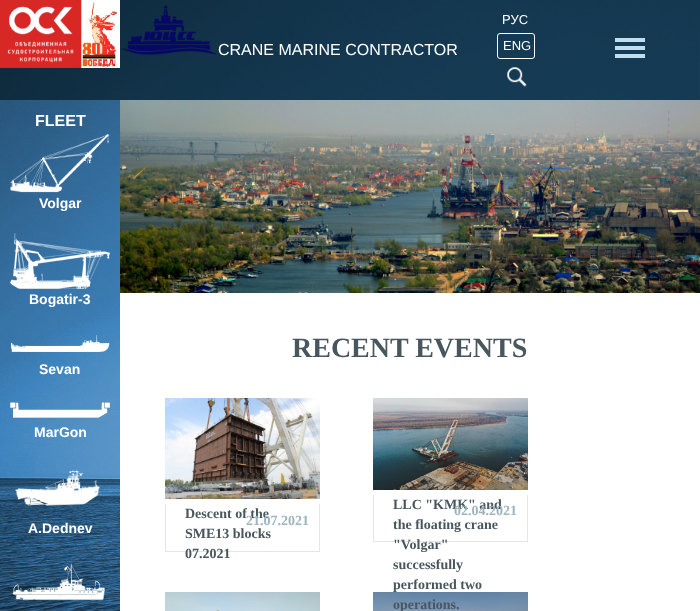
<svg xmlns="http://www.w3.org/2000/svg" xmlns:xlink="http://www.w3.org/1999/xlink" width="700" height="611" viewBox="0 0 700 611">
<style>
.cls-1{font:16px Liberation Sans;fill:#ffffff}
.cls-2{font:13px Liberation Sans;fill:#ffffff}
.cls-3{font:bold 16px Liberation Sans;fill:#ffffff}
.cls-4{font:bold 14px Liberation Sans;fill:#ffffff}
.cls-5{font:bold 28px Liberation Serif;fill:#48565d}
.cls-6{font:bold 14px Liberation Serif;fill:#48565d}
.cls-7{font:bold 14px Liberation Serif;fill:#9fb4be}
</style>
<rect width="100%" height="100%" fill="#ffffff"/>
<image xlink:href="image0.png" x="699" y="0" width="1" height="100"/>
<image xlink:href="image1.png" x="0" y="0" width="700" height="611"/>
<rect fill="#00141d" fill-opacity="0.63" x="0" y="0" width="700" height="100"/>
<image xlink:href="image2.png" x="0" y="0" width="120" height="68"/>
<image xlink:href="image3.png" x="121" y="5" width="96" height="50"/>
<rect fill="none" stroke="#ffffff" x="497.5" y="33.5" width="37" height="25" rx="2.5"/>
<image xlink:href="image4.png" x="507" y="67" width="20" height="20"/>
<rect fill="#bfdef0" x="615" y="38" width="30" height="4"/>
<rect fill="#bfdef0" x="615" y="46" width="30" height="4"/>
<rect fill="#bfdef0" x="615" y="54" width="30" height="4"/>
<image xlink:href="image5.png" x="10" y="133" width="100" height="60"/>
<image xlink:href="image6.png" x="10" y="233" width="100" height="56"/>
<image xlink:href="image7.png" x="11" y="335" width="99" height="17"/>
<image xlink:href="image8.png" x="10" y="402" width="100" height="17"/>
<image xlink:href="image9.png" x="15" y="470" width="85" height="36"/>
<image xlink:href="image10.png" x="12" y="563" width="94" height="38"/>
<rect fill="#ffffff" x="120" y="293" width="580" height="318"/>
<image xlink:href="image11.png" x="120" y="100" width="580" height="193"/>
<image xlink:href="image12.png" x="165" y="398" width="155" height="101"/>
<path fill="#e6e6e6" d="M320 504V552L319 551V504Z"/>
<path fill="#000000" fill-opacity="0.1" d="M320 552H165L166 551H319Z"/>
<path fill="#000000" fill-opacity="0.1" d="M165 552V504H166V551Z"/>
<image xlink:href="image13.png" x="373" y="398" width="155" height="92"/>
<path fill="#e6e6e6" d="M528 495V542L527 541V495Z"/>
<path fill="#000000" fill-opacity="0.1" d="M528 542H373L374 541H527Z"/>
<path fill="#000000" fill-opacity="0.1" d="M373 542V495H374V541Z"/>
<image xlink:href="image14.png" x="165" y="592" width="155" height="19"/>
<image xlink:href="image15.png" x="373" y="592" width="155" height="19"/>
<text class="cls-1" x="218" y="55">CRANE MARINE CONTRACTOR</text>
<text class="cls-2" x="502" y="24">РУС</text>
<text class="cls-2" x="503" y="50">ENG</text>
<text class="cls-3" x="35" y="126">FLEET</text>
<text class="cls-4" x="39" y="208">Volgar</text>
<text class="cls-4" x="29" y="304">Bogatir-3</text>
<text class="cls-4" x="39" y="374">Sevan</text>
<text class="cls-4" x="34" y="437">MarGon</text>
<text class="cls-4" x="28" y="533">A.Dednev</text>
<text class="cls-5" x="292" y="357">RECENT EVENTS</text>
<text class="cls-6"><tspan x="185" y="518">Descent of the</tspan><tspan x="185" y="538">SME13 blocks</tspan><tspan x="185" y="558">07.2021</tspan></text>
<text class="cls-7" x="246" y="525">21.07.2021</text>
<text class="cls-6"><tspan x="393" y="509">LLC "KMK" and</tspan><tspan x="393" y="529">the floating crane</tspan><tspan x="393" y="549">"Volgar"</tspan><tspan x="393" y="569">successfully</tspan><tspan x="393" y="589">performed two</tspan><tspan x="393" y="609">operations.</tspan></text>
<text class="cls-7" x="454" y="515">02.04.2021</text>
</svg>
